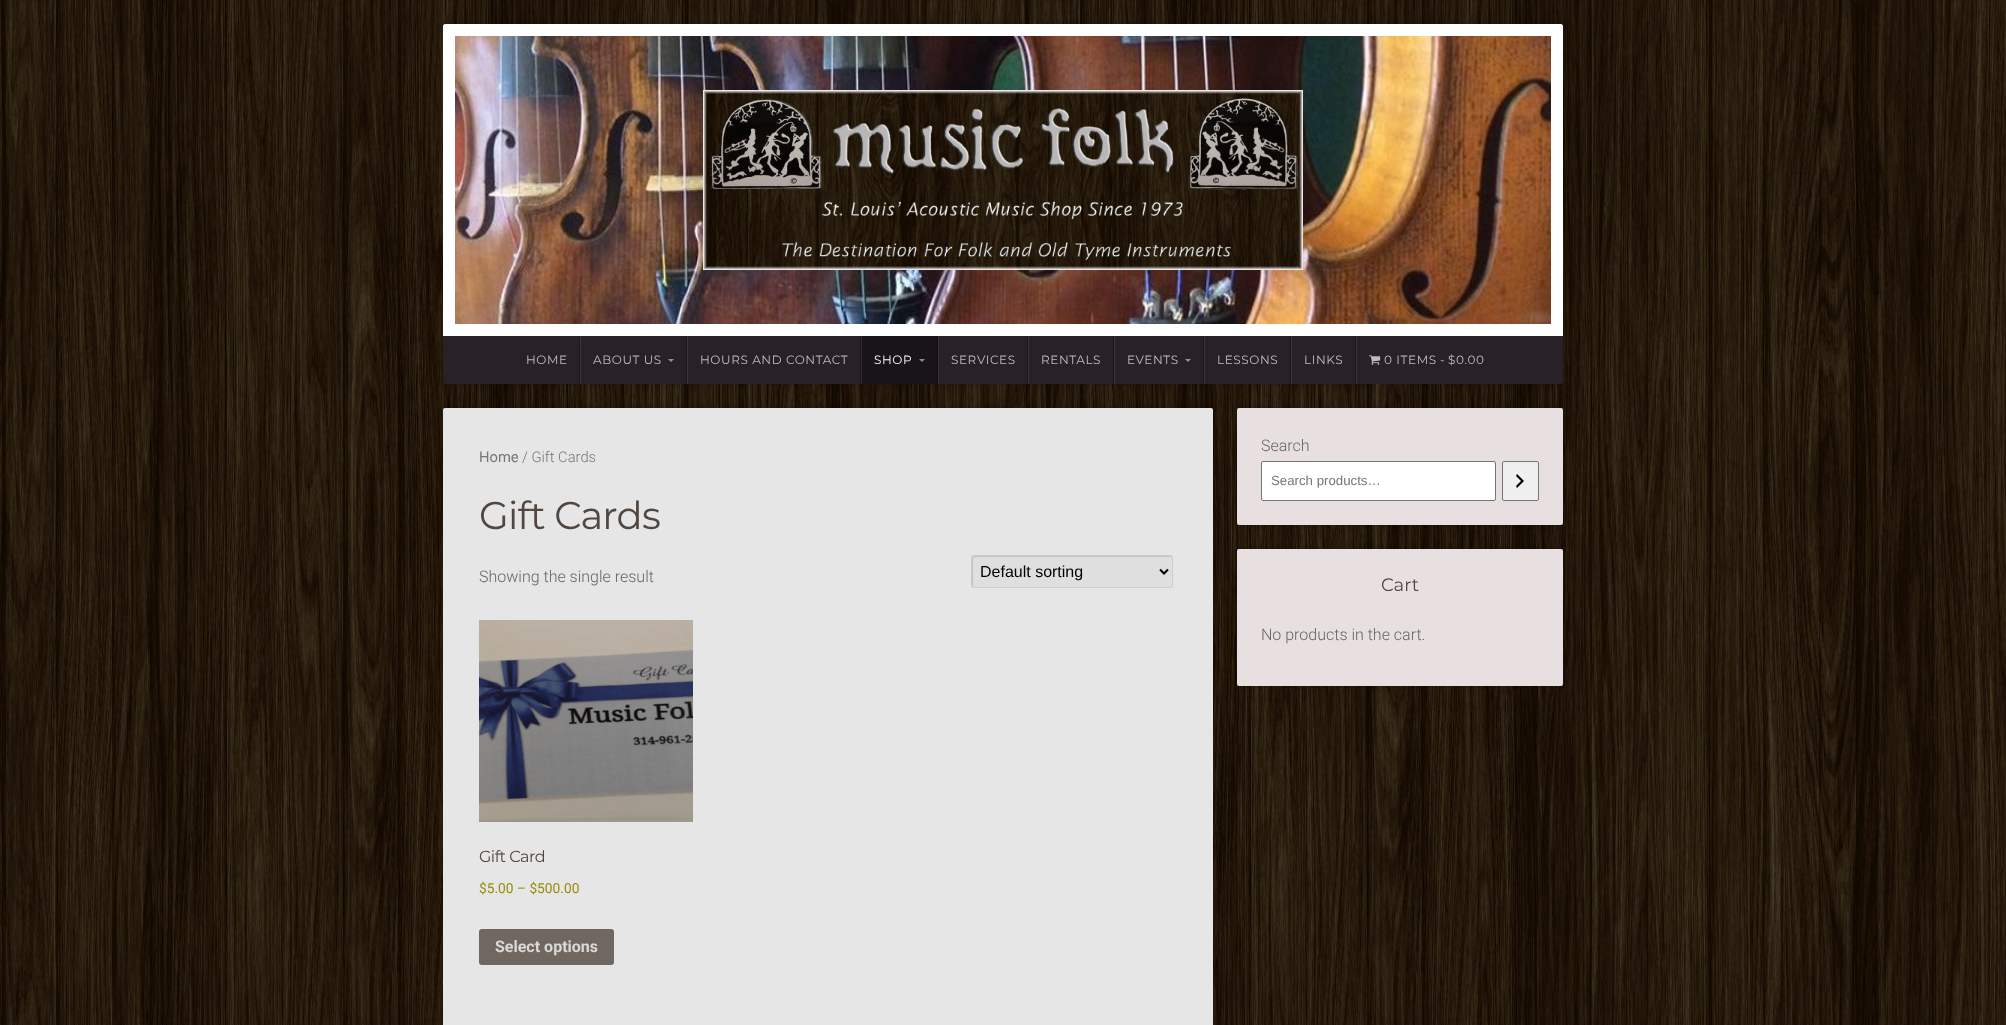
<svg xmlns="http://www.w3.org/2000/svg" xmlns:xlink="http://www.w3.org/1999/xlink" width="2006" height="1025" viewBox="0 0 2006 1025">
<style>
.cls-1{font:12px Montserrat;letter-spacing:0.6px;fill:#bfbdbe}
.cls-2{font:12px Montserrat;letter-spacing:0.6px;fill:#ffffff}
.cls-3{font:14.75px Roboto;fill:#767676}
.cls-4{font:300 14.75px Roboto;fill:#767676}
.cls-5{font:38.5px Montserrat;letter-spacing:-0.75px;fill:#504741}
.cls-6{font:300 16px Roboto;fill:#666666}
.cls-7{font:16px Liberation Sans;fill:#000000}
.cls-8{font:16px Montserrat;letter-spacing:-0.5px;fill:#504741}
.cls-9{font:13.75px Roboto;fill:#958e09}
.cls-10{font:bold 16px Roboto;fill:#dbd9d7}
.cls-11{font:13.25px Liberation Sans;fill:#767676}
.cls-12{font:18px Montserrat;fill:#504741}
</style>
<rect width="100%" height="100%" fill="#ffffff"/>
<image xlink:href="image0.png" x="0" y="0" width="2006" height="1025"/>
<rect fill="#000000" fill-opacity="0.24" filter="blur(2px)" x="443" y="24" width="1120" height="360" rx="2"/>
<path fill="#ffffff" d="M445 24H1561C1562 24 1563 25 1563 26V336H443V26C443 25 444 24 445 24Z"/>
<image xlink:href="image1.png" x="455" y="36" width="1096" height="288"/>
<image xlink:href="image2.png" x="703" y="90" width="600" height="180"/>
<path fill="#282226" d="M443 336H1563V382C1563 383 1562 384 1561 384H445C444 384 443 383 443 382Z"/>
<rect fill="#181417" x="579" y="337" width="1" height="47"/>
<rect fill="#181417" x="686" y="336" width="1" height="48"/>
<rect fill="#3e383c" x="580" y="336" width="1" height="48"/>
<path fill="#949193" d="M668 359H674L671 362Z"/>
<rect fill="#181417" x="860" y="336" width="1" height="48"/>
<rect fill="#3e383c" x="687" y="336" width="1" height="48"/>
<rect fill="#181417" x="862" y="336" width="75" height="48"/>
<rect fill="#0e0c0e" x="937" y="336" width="1" height="48"/>
<rect fill="#2f2c2e" x="861" y="336" width="1" height="48"/>
<path fill="#8c8a8b" d="M919 359H925L922 362Z"/>
<rect fill="#181417" x="1027" y="336" width="1" height="48"/>
<rect fill="#3e383c" x="938" y="336" width="1" height="48"/>
<rect fill="#181417" x="1113" y="336" width="1" height="48"/>
<rect fill="#3e383c" x="1028" y="336" width="1" height="48"/>
<rect fill="#181417" x="1203" y="336" width="1" height="48"/>
<rect fill="#3e383c" x="1114" y="336" width="1" height="48"/>
<path fill="#949193" d="M1185 359H1191L1188 362Z"/>
<rect fill="#181417" x="1290" y="336" width="1" height="48"/>
<rect fill="#3e383c" x="1204" y="336" width="1" height="48"/>
<rect fill="#181417" x="1355" y="336" width="1" height="48"/>
<rect fill="#3e383c" x="1291" y="336" width="1" height="48"/>
<rect fill="#3e383c" x="1356" y="336" width="1" height="48"/>
<image xlink:href="image3.png" x="1369" y="355" width="12" height="10"/>
<rect fill="#000000" fill-opacity="0.24" filter="blur(2px)" x="443" y="408" width="770" height="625" rx="2"/>
<rect fill="#e6e6e6" x="443" y="408" width="770" height="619" rx="2"/>
<rect fill="#dfdfdf" x="971" y="555" width="202" height="33" rx="3"/>
<path fill="#c4c4c4" d="M975 557H1172L1170 556H974C973 556 972 557 972 558V576C972 578 971 586 973 587V564C973 562 972 557 975 557Z"/>
<rect fill="none" stroke="#000000" stroke-opacity="0.08" x="971.5" y="555.5" width="201" height="32" rx="2.5"/>
<path fill="none" stroke="#000000" stroke-width="2" d="M1160 569.5L1164 573.5L1168 569.5"/>
<image xlink:href="image4.png" x="479" y="620" width="214" height="202"/>
<rect fill="#706760" x="479" y="929" width="135" height="36" rx="3"/>
<rect fill="#000000" fill-opacity="0.24" filter="blur(2px)" x="1237" y="408" width="326" height="117" rx="2"/>
<rect fill="#e8e0e0" x="1237" y="408" width="326" height="117" rx="2"/>
<rect fill="#ffffff" stroke="#767676" x="1261.5" y="461.5" width="234" height="39" rx="1.5"/>
<rect fill="#efefef" stroke="#767676" x="1502.5" y="461.5" width="36" height="39" rx="1.5"/>
<image xlink:href="image5.png" x="1516" y="474" width="8" height="14"/>
<rect fill="#000000" fill-opacity="0.24" filter="blur(2px)" x="1237" y="549" width="326" height="137" rx="2"/>
<rect fill="#e8e0e0" x="1237" y="549" width="326" height="137" rx="2"/>
<text class="cls-1" x="526" y="364">HOME</text>
<text class="cls-1" x="593" y="364">ABOUT US</text>
<text class="cls-1" x="700" y="364">HOURS AND CONTACT</text>
<text class="cls-2" x="874" y="364">SHOP</text>
<text class="cls-1" x="951" y="364">SERVICES</text>
<text class="cls-1" x="1041" y="364">RENTALS</text>
<text class="cls-1" x="1127" y="364">EVENTS</text>
<text class="cls-1" x="1217" y="364">LESSONS</text>
<text class="cls-1" x="1304" y="364">LINKS</text>
<text class="cls-1" x="1384" y="364">0 ITEMS</text>
<text class="cls-1" x="1440" y="364">-</text>
<text class="cls-1" x="1448" y="364">$0.00</text>
<text class="cls-3" x="479" y="462">Home</text>
<text class="cls-4" x="522" y="462">/ Gift Cards</text>
<text class="cls-5" x="479" y="529">Gift Cards</text>
<text class="cls-6" x="479" y="582">Showing the single result</text>
<text class="cls-7" x="980" y="577">Default sorting</text>
<text class="cls-8" x="479" y="862">Gift Card</text>
<text class="cls-9" x="479" y="893">$5.00 – $500.00</text>
<text class="cls-10" x="495" y="952">Select options</text>
<text class="cls-6" x="1261" y="451">Search</text>
<text class="cls-11" x="1271" y="485">Search products…</text>
<text class="cls-12" x="1381" y="591">Cart</text>
<text class="cls-6" x="1261" y="640">No products in the cart.</text>
</svg>
